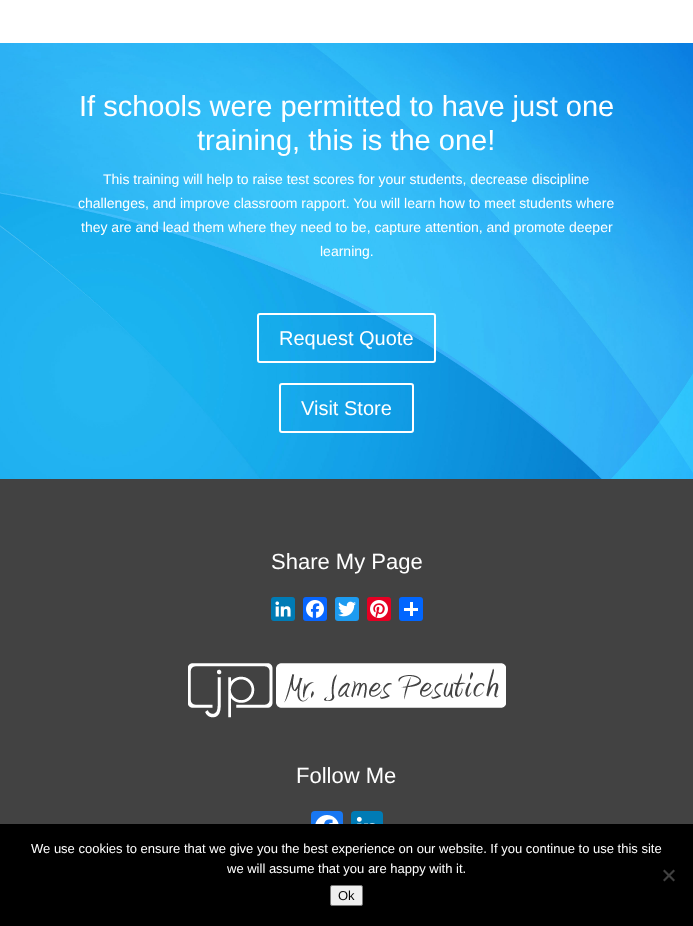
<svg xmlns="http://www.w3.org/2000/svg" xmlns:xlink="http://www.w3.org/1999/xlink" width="693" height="926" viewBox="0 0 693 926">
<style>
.cls-1{font:29px Liberation Sans;fill:#ffffff}
.cls-2{font:14px Liberation Sans;fill:#ffffff}
.cls-3{font:20px Liberation Sans;fill:#ffffff}
.cls-4{font:22px Liberation Sans;fill:#ffffff}
.cls-5{font:13px Liberation Sans;fill:#ffffff}
.cls-6{font:13px Liberation Sans;fill:#000000}
</style>
<rect width="100%" height="100%" fill="#ffffff"/>
<image xlink:href="image0.png" x="0" y="43" width="693" height="436"/>
<rect fill="none" stroke="#ffffff" stroke-width="2" x="258" y="314" width="177" height="48" rx="2"/>
<rect fill="none" stroke="#ffffff" stroke-width="2" x="280" y="384" width="133" height="48" rx="2"/>
<rect fill="#424242" x="0" y="479" width="693" height="345"/>
<rect fill="#007bb5" x="271" y="597" width="24" height="24" rx="3"/>
<image xlink:href="image1.png" x="275" y="601" width="16" height="16"/>
<rect fill="#0866ff" x="303" y="597" width="24" height="24" rx="3"/>
<image xlink:href="image2.png" x="306" y="600" width="18" height="18"/>
<rect fill="#1d9bf0" x="335" y="597" width="24" height="24" rx="3"/>
<image xlink:href="image3.png" x="338" y="601" width="18" height="16"/>
<rect fill="#e60023" x="367" y="597" width="24" height="24" rx="3"/>
<image xlink:href="image4.png" x="370" y="600" width="18" height="18"/>
<rect fill="#0166ff" x="399" y="597" width="24" height="24" rx="3"/>
<rect fill="#ffffff" x="410" y="602" width="3" height="14"/>
<rect fill="#ffffff" x="404" y="608" width="14" height="3"/>
<image xlink:href="image5.png" x="188" y="663" width="318" height="55"/>
<rect fill="#1877f2" x="311" y="811" width="32" height="32" rx="4"/>
<image xlink:href="image6.png" x="315" y="815" width="24" height="9"/>
<rect fill="#007bb5" x="351" y="811" width="32" height="32" rx="4"/>
<image xlink:href="image7.png" x="356" y="816" width="19" height="8"/>
<rect fill="#000000" x="0" y="824" width="693" height="102"/>
<path fill="#404040" d="M673.5 869.5L675 871L664.5 881.5L663 880Z"/>
<path fill="#404040" d="M663 871L664.5 869.5L675 880L673.5 881.5Z"/>
<rect fill="#efefef" stroke="#767676" x="330.5" y="885.5" width="32" height="20" rx="1.5"/>
<text class="cls-1" x="79" y="116">If schools were permitted to have just one</text>
<text class="cls-1" x="197" y="150">training, this is the one!</text>
<text class="cls-2" x="103" y="184">This training will help to raise test scores for your students, decrease discipline</text>
<text class="cls-2" x="78" y="208">challenges, and improve classroom rapport. You will learn how to meet students where</text>
<text class="cls-2" x="81" y="232">they are and lead them where they need to be, capture attention, and promote deeper</text>
<text class="cls-2" x="320" y="256">learning.</text>
<text class="cls-3" x="279" y="345">Request Quote</text>
<text class="cls-3" x="301" y="415">Visit Store</text>
<text class="cls-4" x="271" y="569">Share My Page</text>
<text class="cls-4" x="296" y="783">Follow Me</text>
<text class="cls-5" x="31" y="853">We use cookies to ensure that we give you the best experience on our website. If you continue to use this site</text>
<text class="cls-5" x="227" y="873">we will assume that you are happy with it.</text>
<text class="cls-6" x="338" y="900">Ok</text>
</svg>
